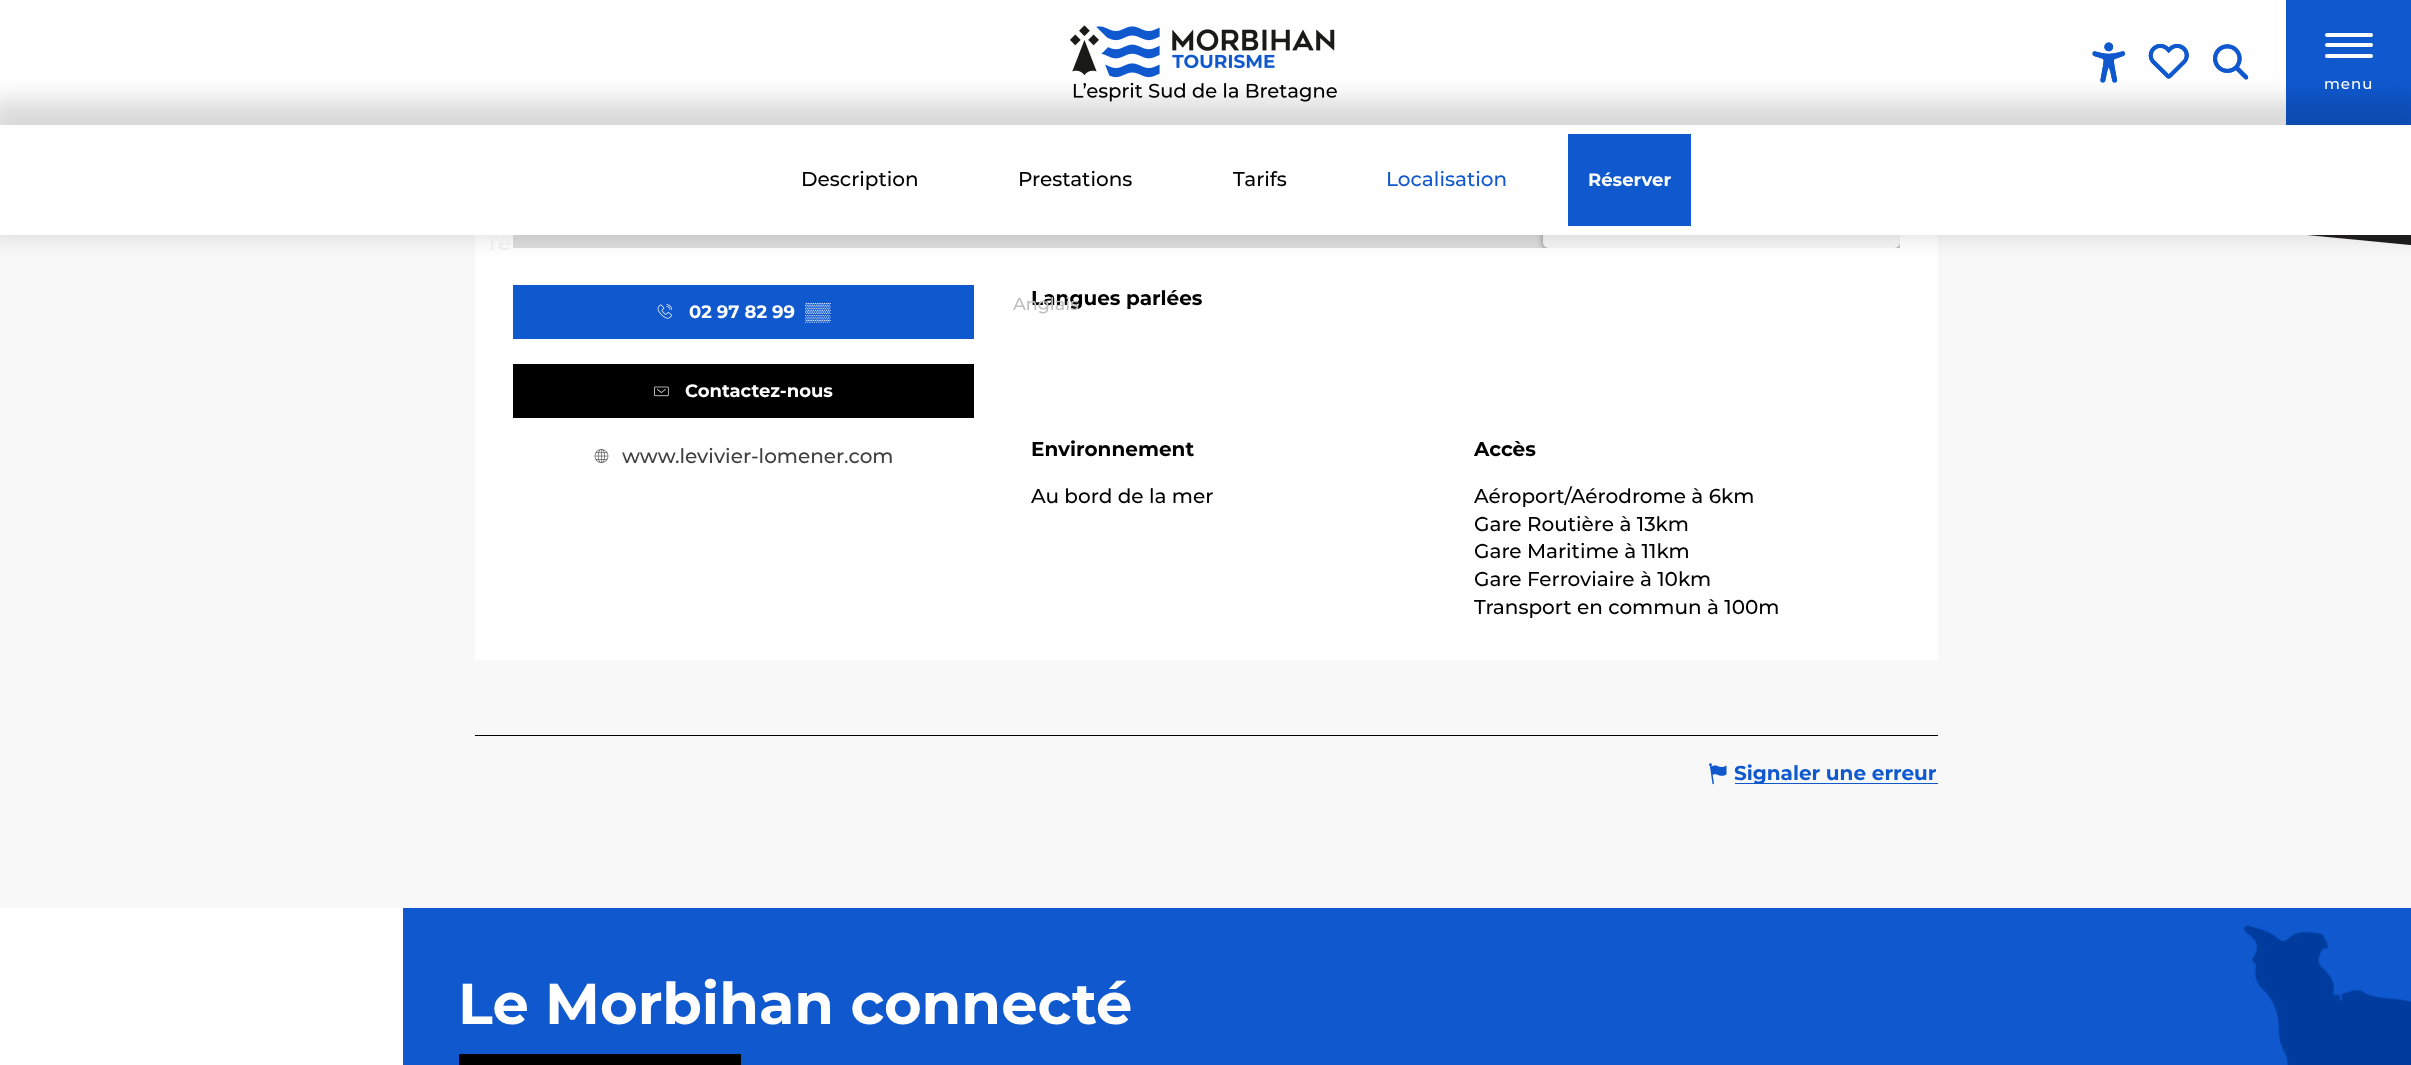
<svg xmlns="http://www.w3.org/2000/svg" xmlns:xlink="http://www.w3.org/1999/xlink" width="2411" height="1065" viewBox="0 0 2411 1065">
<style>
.cls-1{font:500 15px Montserrat;letter-spacing:1px;fill:#ffffff}
.cls-2{font:500 20px Montserrat;fill:#000000}
.cls-3{font:500 20px Montserrat;fill:#0f58ce}
.cls-4{font:bold 18px Montserrat;fill:#ffffff}
.cls-5{font:bold 18px Liberation Sans;fill:#ffffff}
.cls-6{font:500 20px Montserrat;fill:#404040}
.cls-7{font:bold 20px Montserrat;fill:#000000}
.cls-8{font:500 17.5px Montserrat;fill:#c0c0c0}
.cls-9{font:bold 20px Montserrat;fill:#0f58ce}
.cls-10{font:bold 57.5px Montserrat;fill:#ffffff}
.cls-11{font:500 22px Montserrat;fill:#ececec}
</style>
<defs>
<clipPath id="clip1"><rect x="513" y="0" width="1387" height="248"/></clipPath>
<clipPath id="clip2"><path d="M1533 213H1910V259H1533ZM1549 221H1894C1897.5 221 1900 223.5 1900 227V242C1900 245.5 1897.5 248 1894 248H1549C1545.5 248 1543 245.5 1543 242V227C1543 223.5 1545.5 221 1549 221Z" clip-rule="evenodd"/></clipPath>
</defs>
<rect width="100%" height="100%" fill="#ffffff"/>
<image xlink:href="image0.png" x="1070" y="25" width="267" height="77"/>
<image xlink:href="image1.png" x="2092" y="42" width="33" height="41"/>
<image xlink:href="image2.png" x="2092" y="42" width="33" height="41"/>
<image xlink:href="image3.png" x="2148" y="43" width="41" height="36"/>
<image xlink:href="image4.png" x="2148" y="43" width="41" height="36"/>
<image xlink:href="image5.png" x="2213" y="44" width="36" height="36"/>
<image xlink:href="image6.png" x="2213" y="44" width="36" height="36"/>
<rect fill="#0f58ce" x="2286" y="0" width="125" height="125"/>
<rect fill="#ffffff" x="2325" y="33" width="48" height="4" rx="2"/>
<rect fill="#ffffff" x="2325" y="43" width="48" height="4" rx="2"/>
<rect fill="#ffffff" x="2325" y="54" width="48" height="4" rx="2"/>
<rect fill="#f8f8f8" x="0" y="235" width="2411" height="673"/>
<rect fill="#ffffff" x="475" y="235" width="1463" height="425"/>
<rect fill="#dddddd" x="513" y="235" width="1387" height="13"/>
<g clip-path="url(#clip1)">
<g clip-path="url(#clip2)">
<rect fill="#000000" fill-opacity="0.4" filter="blur(3px)" x="1543" y="223" width="357" height="26" rx="6"/>
</g>
</g>
<rect fill="#ffffff" fill-opacity="0.7" x="1543" y="221" width="357" height="27" rx="6"/>
<image xlink:href="image12.png" x="2307" y="235" width="104" height="11"/>
<rect fill="#000000" fill-opacity="0.15" filter="blur(12.5px)" x="-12" y="100" width="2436" height="135"/>
<rect fill="#ffffff" x="0" y="125" width="2411" height="110"/>
<rect fill="#0f58ce" x="1568" y="134" width="123" height="92"/>
<rect fill="#0f58ce" x="513" y="285" width="461" height="54"/>
<image xlink:href="image7.png" x="657" y="304" width="15" height="15"/>
<rect fill="#000000" x="513" y="364" width="461" height="54"/>
<image xlink:href="image8.png" x="654" y="386" width="15" height="11"/>
<image xlink:href="image9.png" x="594" y="449" width="15" height="14"/>
<rect fill="#000000" x="475" y="735" width="1463" height="1"/>
<image xlink:href="image10.png" x="1709" y="763" width="18" height="22"/>
<rect fill="#0f58ce" x="1735" y="783" width="203" height="1"/>
<rect fill="#0f58ce" x="403" y="908" width="2008" height="157"/>
<rect fill="#000000" x="459" y="1054" width="282" height="11"/>
<image xlink:href="image11.png" x="2243" y="925" width="168" height="140"/>
<text class="cls-1" x="2324" y="89">menu</text>
<text class="cls-2" x="801" y="186">Description</text>
<text class="cls-2" x="1018" y="186">Prestations</text>
<text class="cls-2" x="1233" y="186">Tarifs</text>
<text class="cls-3" x="1386" y="186">Localisation</text>
<text class="cls-4" x="1588" y="186">Réserver</text>
<text class="cls-4" x="689" y="318">02 97 82 99</text>
<text class="cls-5" x="805" y="318">▒▒</text>
<text class="cls-4" x="685" y="397">Contactez-nous</text>
<text class="cls-6" x="622" y="463">www.levivier-lomener.com</text>
<text class="cls-7" x="1031" y="305">Langues parlées</text>
<text class="cls-8" x="1013" y="310">Anglais</text>
<text class="cls-7" x="1031" y="456">Environnement</text>
<text class="cls-2" x="1031" y="503">Au bord de la mer</text>
<text class="cls-7" x="1474" y="456">Accès</text>
<text class="cls-2"><tspan x="1474" y="503">Aéroport/Aérodrome à 6km</tspan><tspan x="1474" y="531">Gare Routière à 13km</tspan><tspan x="1474" y="558">Gare Maritime à 11km</tspan><tspan x="1474" y="586">Gare Ferroviaire à 10km</tspan><tspan x="1474" y="614">Transport en commun à 100m</tspan></text>
<text class="cls-9" x="1734" y="780">Signaler une erreur</text>
<text class="cls-10" x="458" y="1024">Le Morbihan connecté</text>
<text class="cls-11" x="489" y="250">re</text>
</svg>
